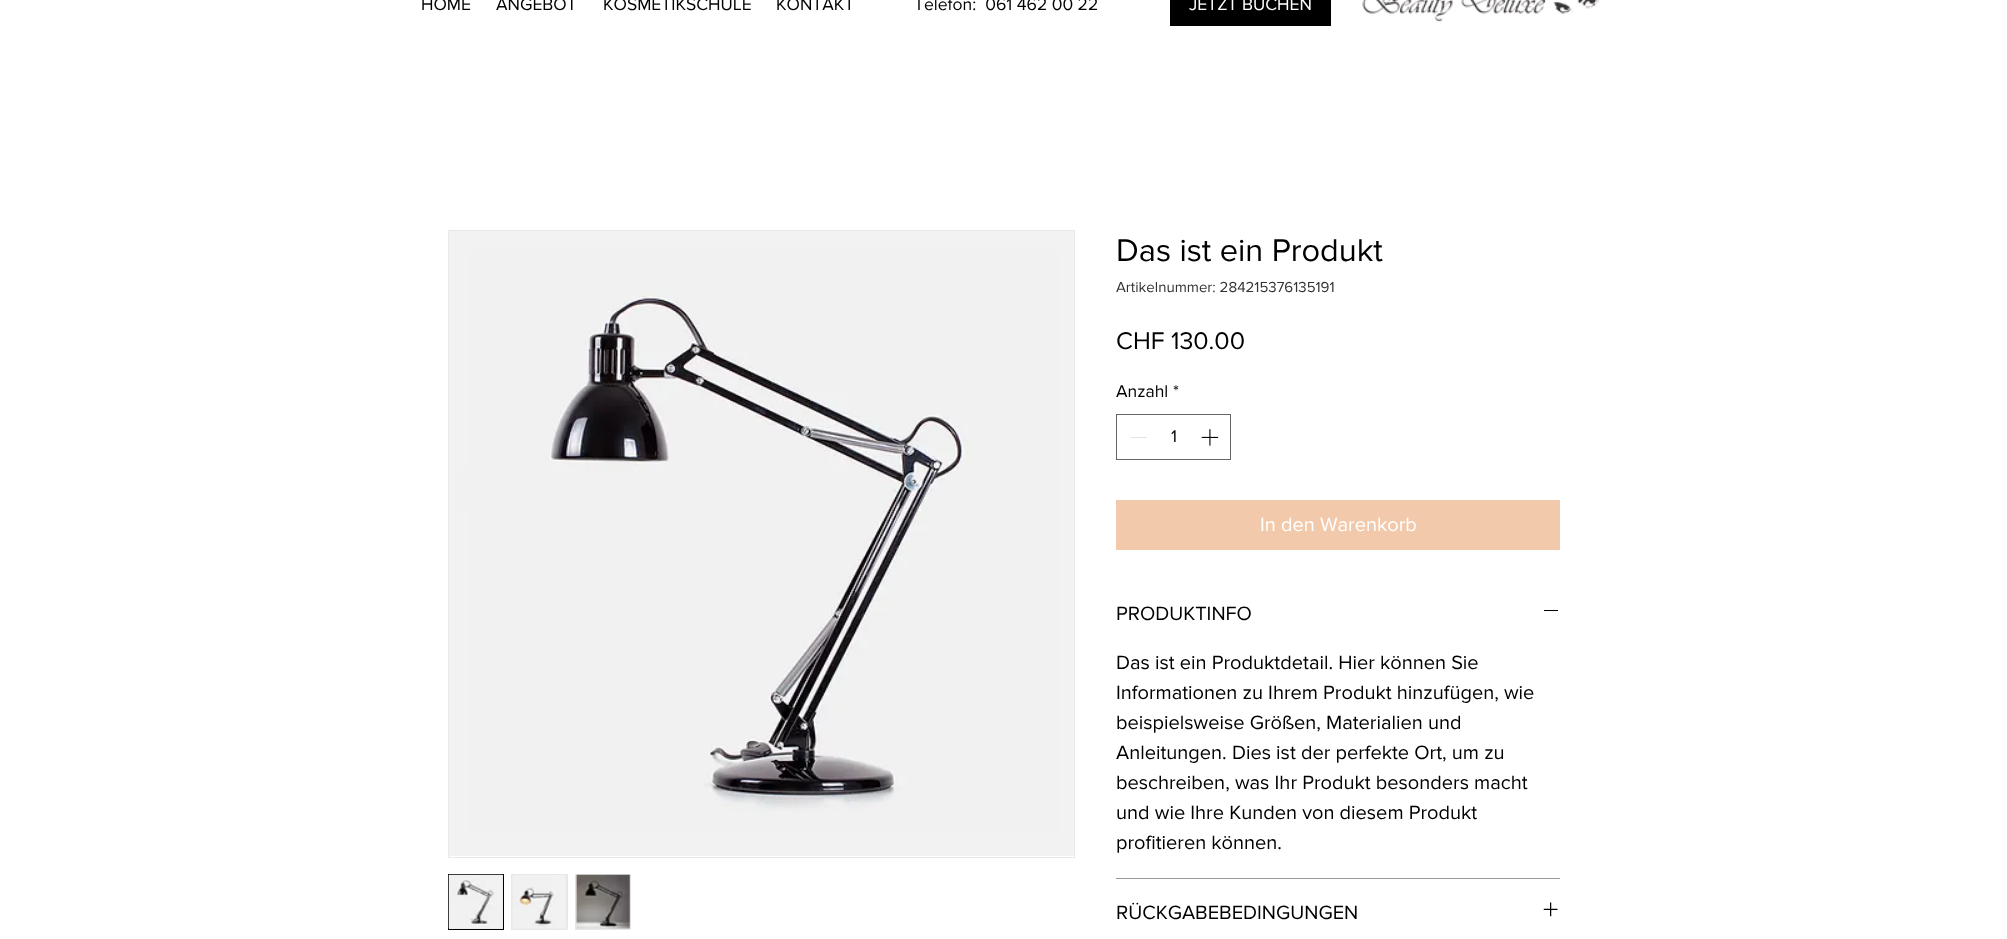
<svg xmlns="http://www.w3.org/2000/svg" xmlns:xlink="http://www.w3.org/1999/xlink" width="2007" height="939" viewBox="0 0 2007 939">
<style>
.cls-1{font:17.5px 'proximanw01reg';fill:#000000}
.cls-2{font:17.5px 'proximanw01reg';fill:#ffffff}
.cls-3{font:32.5px 'proximanw01reg';fill:#000000}
.cls-4{font:15px 'proximanw01reg';fill:#333333}
.cls-5{font:25px 'proximanw01reg';fill:#000000}
.cls-6{font:20px 'proximanw01reg';fill:#ffffff}
.cls-7{font:20px 'proximanw01reg';fill:#000000}
</style>
<rect width="100%" height="100%" fill="#ffffff"/>
<rect fill="#000000" x="1170" y="0" width="161" height="26"/>
<image xlink:href="image0.png" x="1362" y="0" width="237" height="22"/>
<rect fill="none" stroke="#e8e8e8" x="448.5" y="230.5" width="626" height="627"/>
<image xlink:href="image1.png" x="449" y="231" width="625" height="625"/>
<rect fill="#e8e8e8" stroke="#000000" x="448.5" y="874.5" width="55" height="55"/>
<image xlink:href="image2.png" x="448" y="874" width="55" height="55"/>
<rect fill="#e8e8e8" x="511" y="874" width="57" height="56"/>
<image xlink:href="image3.png" x="512" y="875" width="54" height="54"/>
<rect fill="#e8e8e8" x="575" y="874" width="56" height="56"/>
<image xlink:href="image4.png" x="575" y="874" width="56" height="55"/>
<rect fill="none" stroke="#666666" x="1116.5" y="414.5" width="114" height="45"/>
<rect fill="#e3e3e3" x="1131" y="437" width="16" height="1"/>
<image xlink:href="image5.png" x="1201" y="429" width="18" height="17"/>
<rect fill="#f2c9aa" x="1116" y="500" width="444" height="50"/>
<rect fill="#999999" x="1116" y="878" width="444" height="1"/>
<rect fill="#000000" x="1544" y="610" width="14" height="1"/>
<image xlink:href="image6.png" x="1543" y="902" width="15" height="15"/>
<text class="cls-1" x="421" y="10">HOME</text>
<text class="cls-1" x="496" y="10">ANGEBOT</text>
<text class="cls-1" x="603" y="10">KOSMETIKSCHULE</text>
<text class="cls-1" x="776" y="10">KONTAKT</text>
<text class="cls-1" xml:space="preserve" x="914" y="10">Telefon:  061 462 00 22</text>
<text class="cls-2" x="1189" y="10">JETZT BUCHEN</text>
<text class="cls-3" x="1116" y="261">Das ist ein Produkt</text>
<text class="cls-4" x="1116" y="292">Artikelnummer: 284215376135191</text>
<text class="cls-5" x="1116" y="349">CHF 130.00</text>
<text class="cls-1" x="1116" y="397">Anzahl</text>
<text class="cls-1" x="1173" y="397">*</text>
<text class="cls-1" x="1171" y="442">1</text>
<text class="cls-6" x="1260" y="531">In den Warenkorb</text>
<text class="cls-7" x="1116" y="620">PRODUKTINFO</text>
<text class="cls-7"><tspan x="1116" y="669">Das ist ein Produktdetail. Hier können Sie</tspan><tspan x="1116" y="699">Informationen zu Ihrem Produkt hinzufügen, wie</tspan><tspan x="1116" y="729">beispielsweise Größen, Materialien und</tspan><tspan x="1116" y="759">Anleitungen. Dies ist der perfekte Ort, um zu</tspan><tspan x="1116" y="789">beschreiben, was Ihr Produkt besonders macht</tspan><tspan x="1116" y="819">und wie Ihre Kunden von diesem Produkt</tspan><tspan x="1116" y="849">profitieren können.</tspan></text>
<text class="cls-7" x="1116" y="919">RÜCKGABEBEDINGUNGEN</text>
</svg>
